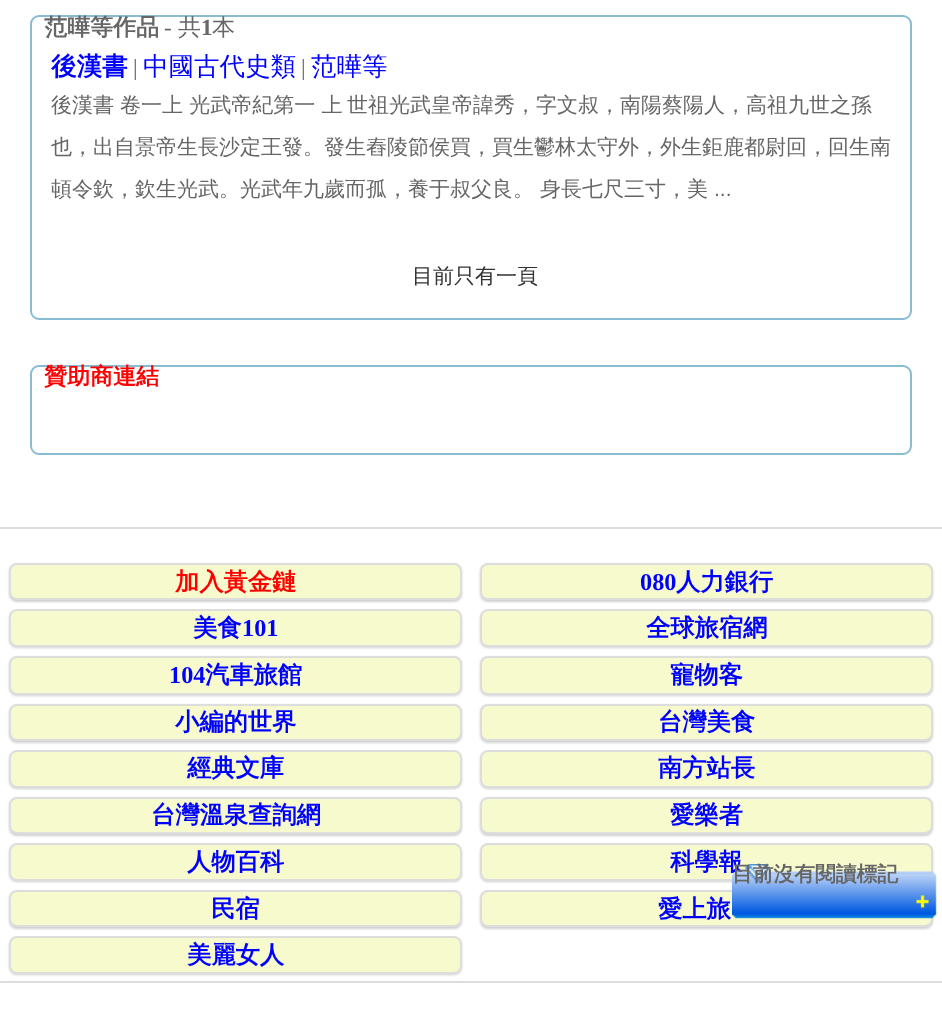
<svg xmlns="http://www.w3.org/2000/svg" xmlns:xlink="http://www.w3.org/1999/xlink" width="942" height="1036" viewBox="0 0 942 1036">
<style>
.cls-1{font:bold 23px WenQuanYi Zen Hei;fill:#666666}
.cls-2{font:23px Liberation Serif;fill:#666666}
.cls-3{font:500 23px WenQuanYi Zen Hei;fill:#666666}
.cls-4{font:bold 23px Liberation Serif;fill:#666666}
.cls-5{font:bold 25.5px WenQuanYi Zen Hei;fill:#0000ff}
.cls-6{font:500 25.5px WenQuanYi Zen Hei;fill:#0000ff}
.cls-7{font:500 21px WenQuanYi Zen Hei;fill:#666666}
.cls-8{font:21px Liberation Sans;fill:#666666}
.cls-9{font:500 21px WenQuanYi Zen Hei;fill:#333333}
.cls-10{font:bold 23px WenQuanYi Zen Hei;fill:#ff0000}
.cls-11{font:bold 24.25px WenQuanYi Zen Hei;fill:#ff0000}
.cls-12{font:bold 24.25px Liberation Serif;fill:#0000ff}
.cls-13{font:bold 24.25px WenQuanYi Zen Hei;fill:#0000ff}
.cls-14{font:bold 20.75px WenQuanYi Zen Hei;fill:#666666}
</style>
<rect width="100%" height="100%" fill="#ffffff"/>
<rect fill="none" stroke="#87bcd4" stroke-width="2" x="31" y="16" width="880" height="303" rx="8"/>
<rect fill="none" stroke="#87bcd4" stroke-width="2" x="31" y="366" width="880" height="88" rx="8"/>
<rect fill="#dddddd" x="0" y="527" width="942" height="2"/>
<rect fill="#646464" fill-opacity="0.3" filter="blur(1px)" x="9" y="564" width="453" height="38" rx="8"/>
<rect fill="#f7facd" stroke="#dddddd" stroke-width="2" x="10" y="564" width="451" height="35" rx="7"/>
<rect fill="#646464" fill-opacity="0.3" filter="blur(1px)" x="480" y="564" width="453" height="38" rx="8"/>
<rect fill="#f7facd" stroke="#dddddd" stroke-width="2" x="481" y="564" width="451" height="35" rx="7"/>
<rect fill="#646464" fill-opacity="0.3" filter="blur(1px)" x="9" y="611" width="453" height="37" rx="8"/>
<rect fill="#f7facd" stroke="#dddddd" stroke-width="2" x="10" y="610" width="451" height="36" rx="7"/>
<rect fill="#646464" fill-opacity="0.3" filter="blur(1px)" x="480" y="611" width="453" height="37" rx="8"/>
<rect fill="#f7facd" stroke="#dddddd" stroke-width="2" x="481" y="610" width="451" height="36" rx="7"/>
<rect fill="#646464" fill-opacity="0.3" filter="blur(1px)" x="9" y="657" width="453" height="39" rx="8"/>
<rect fill="#f7facd" stroke="#dddddd" stroke-width="2" x="10" y="657" width="451" height="37" rx="7"/>
<rect fill="#646464" fill-opacity="0.3" filter="blur(1px)" x="480" y="657" width="453" height="39" rx="8"/>
<rect fill="#f7facd" stroke="#dddddd" stroke-width="2" x="481" y="657" width="451" height="37" rx="7"/>
<rect fill="#646464" fill-opacity="0.3" filter="blur(1px)" x="9" y="705" width="453" height="38" rx="8"/>
<rect fill="#f7facd" stroke="#dddddd" stroke-width="2" x="10" y="705" width="451" height="35" rx="7"/>
<rect fill="#646464" fill-opacity="0.3" filter="blur(1px)" x="480" y="705" width="453" height="38" rx="8"/>
<rect fill="#f7facd" stroke="#dddddd" stroke-width="2" x="481" y="705" width="451" height="35" rx="7"/>
<rect fill="#646464" fill-opacity="0.3" filter="blur(1px)" x="9" y="752" width="453" height="37" rx="8"/>
<rect fill="#f7facd" stroke="#dddddd" stroke-width="2" x="10" y="751" width="451" height="36" rx="7"/>
<rect fill="#646464" fill-opacity="0.3" filter="blur(1px)" x="480" y="752" width="453" height="37" rx="8"/>
<rect fill="#f7facd" stroke="#dddddd" stroke-width="2" x="481" y="751" width="451" height="36" rx="7"/>
<rect fill="#646464" fill-opacity="0.3" filter="blur(1px)" x="9" y="798" width="453" height="38" rx="8"/>
<rect fill="#f7facd" stroke="#dddddd" stroke-width="2" x="10" y="798" width="451" height="35" rx="7"/>
<rect fill="#646464" fill-opacity="0.3" filter="blur(1px)" x="480" y="798" width="453" height="38" rx="8"/>
<rect fill="#f7facd" stroke="#dddddd" stroke-width="2" x="481" y="798" width="451" height="35" rx="7"/>
<rect fill="#646464" fill-opacity="0.3" filter="blur(1px)" x="9" y="845" width="453" height="37" rx="8"/>
<rect fill="#f7facd" stroke="#dddddd" stroke-width="2" x="10" y="844" width="451" height="36" rx="7"/>
<rect fill="#646464" fill-opacity="0.3" filter="blur(1px)" x="480" y="845" width="453" height="37" rx="8"/>
<rect fill="#f7facd" stroke="#dddddd" stroke-width="2" x="481" y="844" width="451" height="36" rx="7"/>
<rect fill="#646464" fill-opacity="0.3" filter="blur(1px)" x="9" y="891" width="453" height="38" rx="8"/>
<rect fill="#f7facd" stroke="#dddddd" stroke-width="2" x="10" y="891" width="451" height="35" rx="7"/>
<rect fill="#646464" fill-opacity="0.3" filter="blur(1px)" x="480" y="891" width="453" height="38" rx="8"/>
<rect fill="#f7facd" stroke="#dddddd" stroke-width="2" x="481" y="891" width="451" height="35" rx="7"/>
<rect fill="#646464" fill-opacity="0.3" filter="blur(1px)" x="9" y="938" width="453" height="37" rx="8"/>
<rect fill="#f7facd" stroke="#dddddd" stroke-width="2" x="10" y="937" width="451" height="36" rx="7"/>
<rect fill="#dddddd" x="0" y="981" width="942" height="2"/>
<text class="cls-1" x="44" y="35">范曄等作品</text>
<text class="cls-2" x="164" y="35">-</text>
<text class="cls-3" x="178" y="35">共</text>
<text class="cls-4" x="201" y="35">1</text>
<text class="cls-3" x="212" y="35">本</text>
<text class="cls-5" x="51" y="75">後漢書</text>
<text class="cls-2" x="133" y="75">|</text>
<text class="cls-6" x="143" y="75">中國古代史類</text>
<text class="cls-2" x="301" y="75">|</text>
<text class="cls-6" x="311" y="75">范曄等</text>
<text class="cls-7" x="51" y="112">後漢書</text>
<text class="cls-7" x="120" y="112">卷一上 光武帝紀第一 上</text>
<text class="cls-7" x="347" y="112">世祖光武皇帝諱秀，字文叔，南陽蔡陽人，高祖九世之孫</text>
<text class="cls-7" x="51" y="154">也，出自景帝生長沙定王發。發生舂陵節侯買，買生鬱林太守外，外生鉅鹿都尉回，回生南</text>
<text class="cls-7" x="51" y="196">頓令欽，欽生光武。光武年九歲而孤，養于叔父良。</text>
<text class="cls-7" x="540" y="196">身長七尺三寸，美</text>
<text class="cls-8" x="714" y="196">...</text>
<text class="cls-9" x="412" y="283">目前只有一頁</text>
<text class="cls-10" x="44" y="384">贊助商連結</text>
<text class="cls-11" x="175" y="590">加入黃金鏈</text>
<text class="cls-12" x="640" y="590">080</text>
<text class="cls-13" x="676" y="590">人力銀行</text>
<text class="cls-13" x="193" y="636">美食</text>
<text class="cls-12" x="242" y="636">101</text>
<text class="cls-13" x="646" y="636">全球旅宿網</text>
<text class="cls-12" x="169" y="683">104</text>
<text class="cls-13" x="205" y="683">汽車旅館</text>
<text class="cls-13" x="670" y="683">寵物客</text>
<text class="cls-13" x="175" y="730">小編的世界</text>
<text class="cls-13" x="658" y="730">台灣美食</text>
<text class="cls-13" x="187" y="776">經典文庫</text>
<text class="cls-13" x="658" y="776">南方站長</text>
<text class="cls-13" x="151" y="823">台灣溫泉查詢網</text>
<text class="cls-13" x="670" y="823">愛樂者</text>
<text class="cls-13" x="187" y="870">人物百科</text>
<text class="cls-13" x="670" y="870">科學報</text>
<text class="cls-13" x="211" y="917">民宿</text>
<text class="cls-13" x="658" y="917">愛上旅</text>
<text class="cls-13" x="187" y="963">美麗女人</text>
<image xlink:href="image0.png" x="732" y="864" width="205" height="55"/>
<text class="cls-14" x="732" y="881">目前沒有閱讀標記</text>
</svg>
